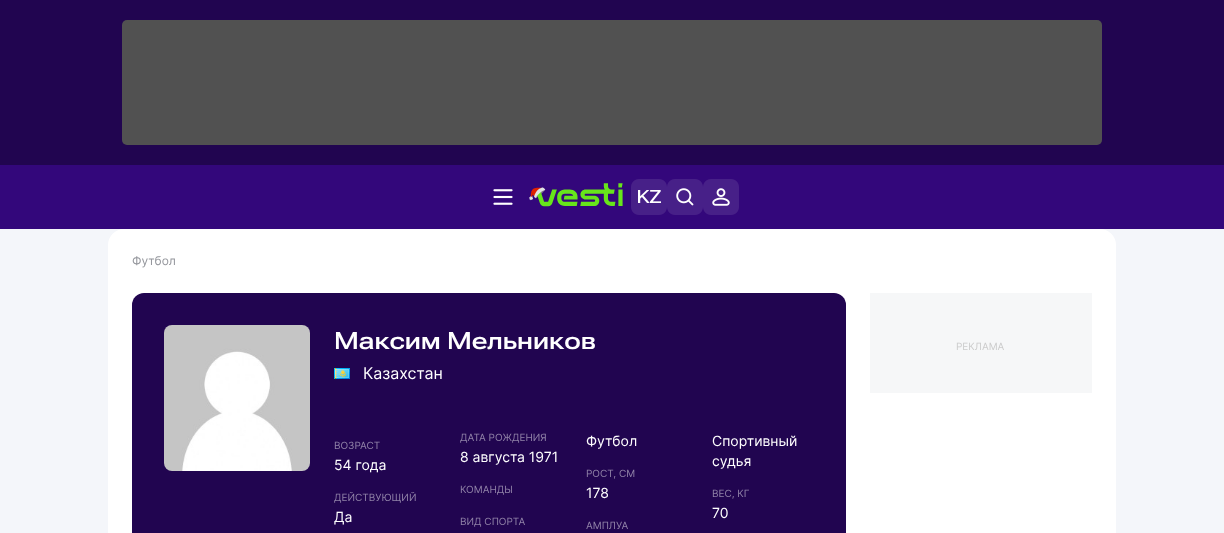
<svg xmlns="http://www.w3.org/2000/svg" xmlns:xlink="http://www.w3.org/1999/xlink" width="1224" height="533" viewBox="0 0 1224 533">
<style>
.cls-1{font:12px Inter;fill:#94969c}
.cls-2{font:600 24px Roboto Flex;fill:#ffffff}
.cls-3{font:16px Inter;fill:#ffffff}
.cls-4{font:10px Inter;fill:#9082a7}
.cls-5{font:14px Inter;fill:#ffffff}
.cls-6{font:10px Inter;fill:#cccccc}
</style>
<rect width="100%" height="100%" fill="#f4f6fa"/>
<rect fill="#210550" x="0" y="0" width="1224" height="165"/>
<rect fill="#515151" x="122" y="20" width="980" height="125" rx="5"/>
<rect fill="#33077b" x="0" y="165" width="1224" height="64"/>
<image xlink:href="image0.png" x="493" y="189" width="20" height="16"/>
<image xlink:href="image1.png" x="529" y="183" width="94" height="24"/>
<image xlink:href="image2.png" x="631" y="179" width="36" height="36"/>
<image xlink:href="image3.png" x="667" y="179" width="36" height="36"/>
<image xlink:href="image4.png" x="703" y="179" width="36" height="36"/>
<rect fill="#ffffff" x="108" y="229" width="1008" height="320" rx="16"/>
<rect fill="#210550" x="132" y="293" width="714" height="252" rx="12"/>
<image xlink:href="image5.png" x="164" y="325" width="146" height="146"/>
<image xlink:href="image6.png" x="334" y="368" width="16" height="11"/>
<rect fill="#f6f7f8" x="870" y="293" width="222" height="100"/>
<text class="cls-1" x="132" y="265">Футбол</text>
<text class="cls-2" x="334" y="349">Максим Мельников</text>
<text class="cls-3" x="363" y="379">Казахстан</text>
<text class="cls-4" x="460" y="441">ДАТА РОЖДЕНИЯ</text>
<text class="cls-5" x="460" y="462">8 августа 1971</text>
<text class="cls-4" x="334" y="449">ВОЗРАСТ</text>
<text class="cls-5" x="334" y="470">54 года</text>
<text class="cls-5" x="586" y="446">Футбол</text>
<text class="cls-4" x="460" y="525">ВИД СПОРТА</text>
<text class="cls-5"><tspan x="712" y="446">Спортивный</tspan><tspan x="712" y="466">судья</tspan></text>
<text class="cls-4" x="586" y="529">АМПЛУА</text>
<text class="cls-4" x="334" y="501">ДЕЙСТВУЮЩИЙ</text>
<text class="cls-5" x="334" y="522">Да</text>
<text class="cls-4" x="460" y="493">КОМАНДЫ</text>
<text class="cls-4" x="586" y="477">РОСТ, СМ</text>
<text class="cls-5" x="586" y="498">178</text>
<text class="cls-4" x="712" y="497">ВЕС, КГ</text>
<text class="cls-5" x="712" y="518">70</text>
<text class="cls-6" x="956" y="350">РЕКЛАМА</text>
</svg>
